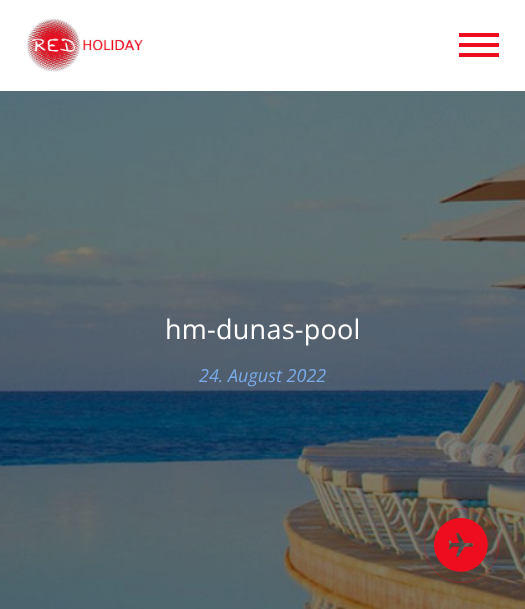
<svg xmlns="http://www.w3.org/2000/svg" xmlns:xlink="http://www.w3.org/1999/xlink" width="525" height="609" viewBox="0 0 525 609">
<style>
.cls-1{font:27px Open Sans;letter-spacing:0.25px;fill:#ffffff}
.cls-2{font:italic 18px Open Sans;fill:#7aaae8}
</style>
<rect width="100%" height="100%" fill="#ffffff"/>
<image xlink:href="image0.png" x="26" y="18" width="117" height="54"/>
<rect fill="#ee0d1f" x="459" y="43" width="40" height="4"/>
<rect fill="#ee0d1f" x="459" y="33" width="40" height="4"/>
<rect fill="#ee0d1f" x="459" y="53" width="40" height="4"/>
<image xlink:href="image1.png" x="0" y="91" width="525" height="518"/>
<circle fill="none" stroke="#ee0d1f" stroke-opacity="0.3" cx="461.5" cy="545.5" r="37"/>
<image xlink:href="image2.png" x="434" y="518" width="54" height="54"/>
<text class="cls-1" x="165" y="339">hm-dunas-pool</text>
<text class="cls-2" x="199" y="382">24. August 2022</text>
</svg>
